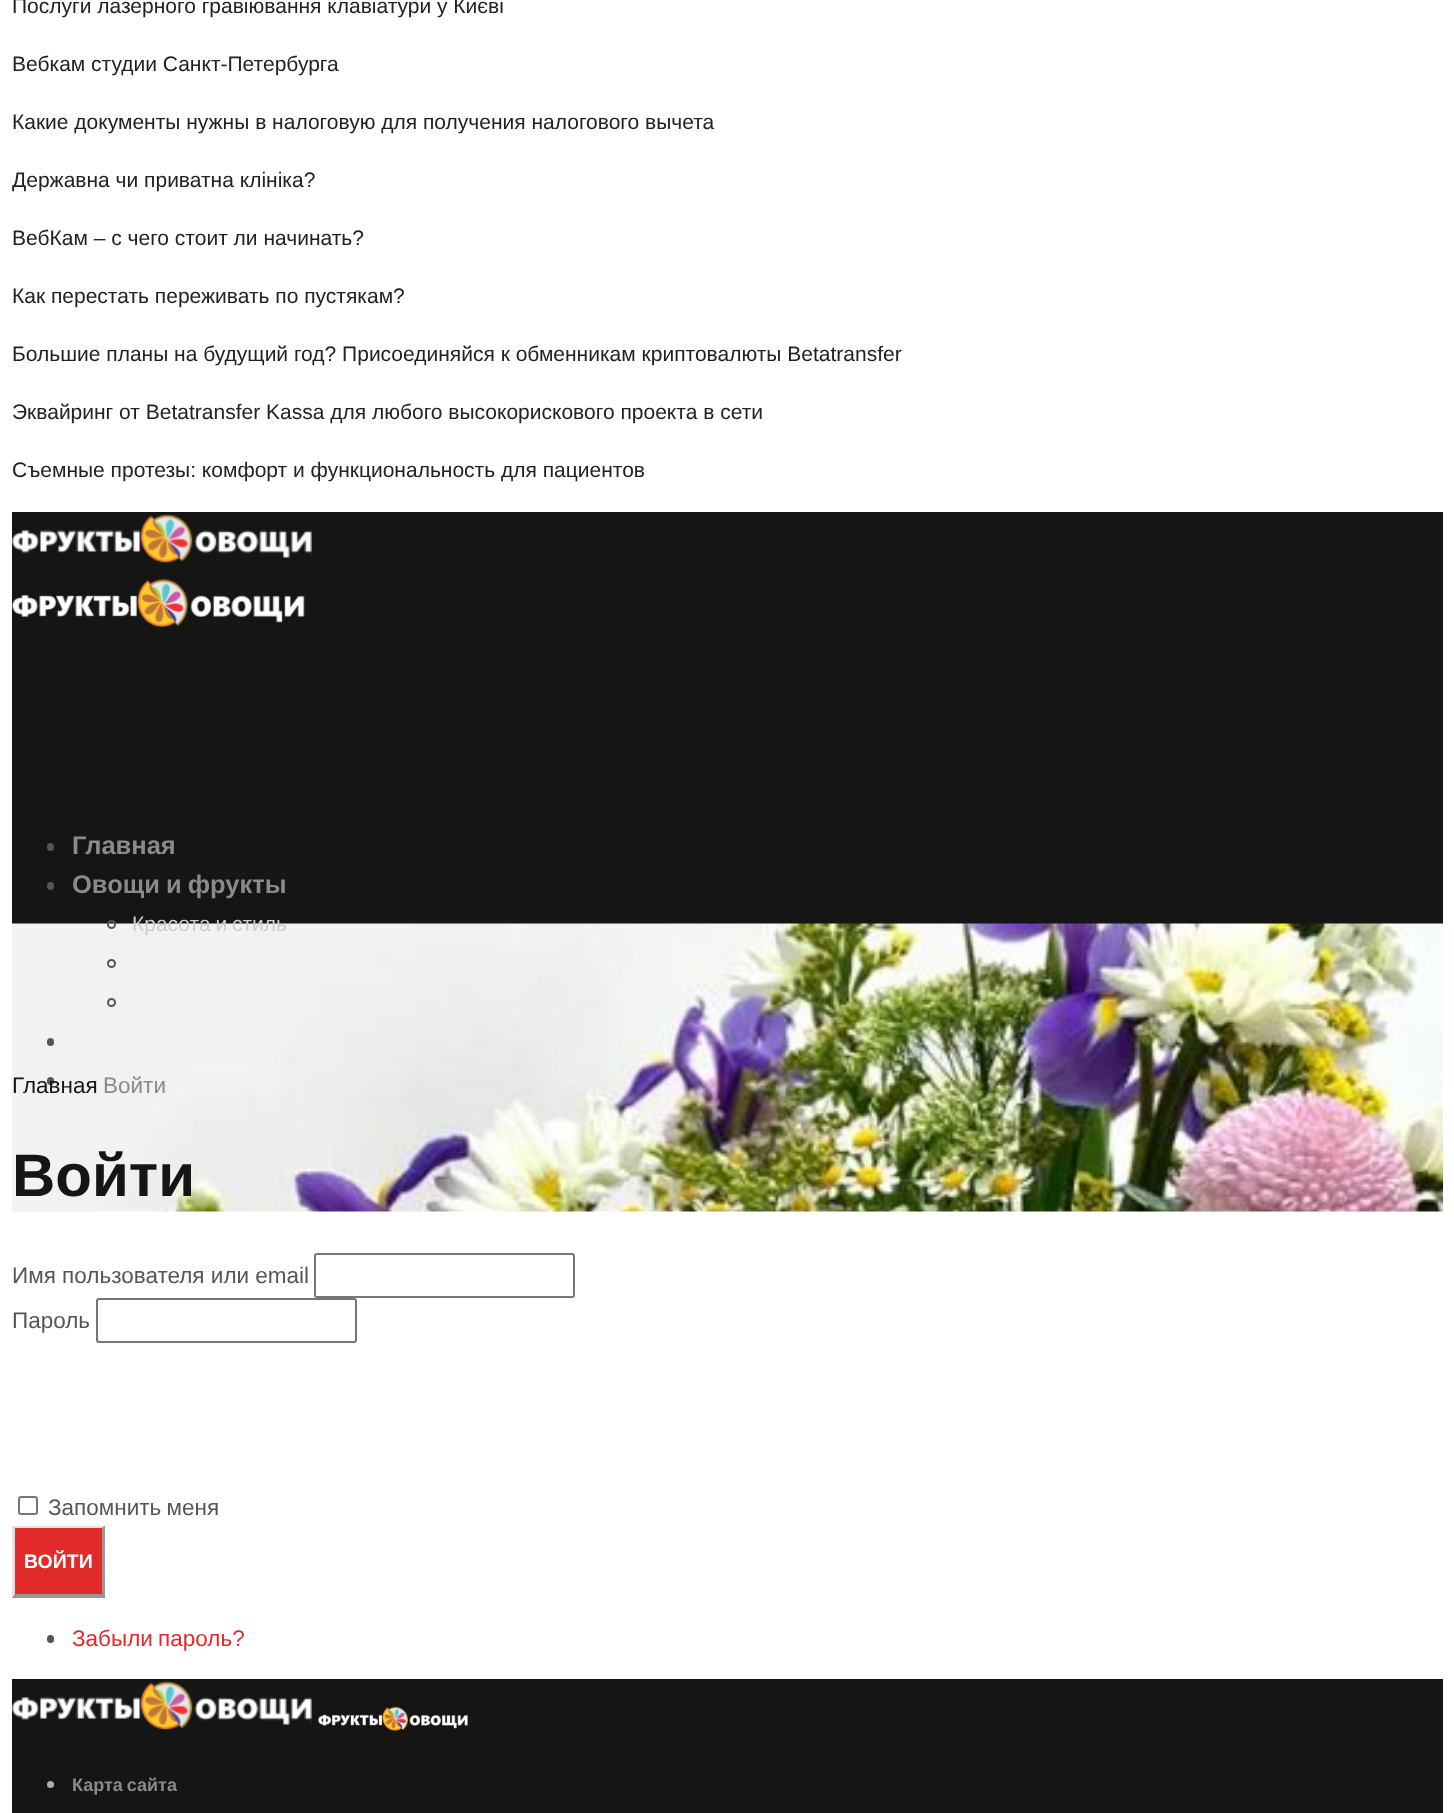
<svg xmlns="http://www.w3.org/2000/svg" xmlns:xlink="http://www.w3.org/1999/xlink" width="1454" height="1813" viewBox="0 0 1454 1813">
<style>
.cls-1{font:21px Liberation Sans;fill:#222222}
.cls-2{font:bold 25.5px Liberation Sans;fill:#8a8a8a}
.cls-3{font:21px Liberation Sans;fill:#cececd}
.cls-4{font:22.5px Liberation Sans;fill:#151515}
.cls-5{font:22.5px Liberation Sans;fill:#8a8a8a}
.cls-6{font:bold 60px Liberation Sans;fill:#151515}
.cls-7{font:22.5px Liberation Sans;fill:#565656}
.cls-8{font:bold 19.5px Liberation Sans;fill:#ffffff}
.cls-9{font:22.5px Liberation Sans;fill:#e12b2b}
.cls-10{font:bold 18px Liberation Sans;fill:#8a8a8a}
</style>
<rect width="100%" height="100%" fill="#ffffff"/>
<rect fill="#151515" x="12" y="512" width="1431" height="412"/>
<image xlink:href="image0.png" x="12" y="513" width="300" height="50"/>
<image xlink:href="image1.png" x="12" y="578" width="293" height="50"/>
<rect fill="#565656" x="47" y="843" width="7" height="8" rx="3.5"/>
<rect fill="#565656" x="47" y="882" width="7" height="8" rx="3.5"/>
<image xlink:href="image2.png" x="12" y="923" width="1431" height="289"/>
<circle fill="none" stroke="#565656" stroke-width="2" cx="111.5" cy="924.5" r="3.5"/>
<circle fill="none" stroke="#565656" stroke-width="2" cx="111.5" cy="963.5" r="3.5"/>
<circle fill="none" stroke="#565656" stroke-width="2" cx="111.5" cy="1002.5" r="3.5"/>
<rect fill="#565656" x="47" y="1038" width="7" height="8" rx="3.5"/>
<rect fill="#565656" x="47" y="1077" width="7" height="8" rx="3.5"/>
<rect fill="none" stroke="#767676" stroke-width="2" x="315" y="1254" width="259" height="43" rx="2"/>
<rect fill="none" stroke="#767676" stroke-width="2" x="97" y="1299" width="259" height="43" rx="2"/>
<rect fill="none" stroke="#767676" stroke-width="2" x="19" y="1497" width="18" height="17" rx="2"/>
<rect fill="#e12b2b" x="12" y="1526" width="93" height="72"/>
<path fill="#e3e3e3" d="M12 1526H105L102 1528H15Z"/>
<path fill="#979797" d="M105 1526V1598L102 1594V1528Z"/>
<path fill="#979797" d="M105 1598H12L15 1594H102Z"/>
<path fill="#e3e3e3" d="M12 1598V1526L15 1528V1594Z"/>
<rect fill="#565656" x="47" y="1635" width="7" height="8" rx="3.5"/>
<rect fill="#151515" x="12" y="1679" width="1431" height="134"/>
<image xlink:href="image0.png" x="12" y="1680" width="300" height="50"/>
<image xlink:href="image3.png" x="318" y="1706" width="150" height="25"/>
<circle fill="#adadad" cx="50.5" cy="1784.5" r="3.5"/>
<text class="cls-1" x="12" y="13">Послуги лазерного гравіювання клавіатури у Києві</text>
<text class="cls-1" x="12" y="71">Вебкам студии Санкт-Петербурга</text>
<text class="cls-1" x="12" y="129">Какие документы нужны в налоговую для получения налогового вычета</text>
<text class="cls-1" x="12" y="187">Державна чи приватна клініка?</text>
<text class="cls-1" x="12" y="245">ВебКам – с чего стоит ли начинать?</text>
<text class="cls-1" x="12" y="303">Как перестать переживать по пустякам?</text>
<text class="cls-1" x="12" y="361">Большие планы на будущий год? Присоединяйся к обменникам криптовалюты Betatransfer</text>
<text class="cls-1" x="12" y="419">Эквайринг от Betatransfer Kassa для любого высокорискового проекта в сети</text>
<text class="cls-1" x="12" y="477">Съемные протезы: комфорт и функциональность для пациентов</text>
<text class="cls-2"><tspan x="72" y="854">Главная</tspan><tspan x="72" y="893" word-spacing="-1">Овощи и фрукты</tspan></text>
<text class="cls-3" x="132" y="931" word-spacing="-1">Красота и стиль</text>
<text class="cls-4" x="12" y="1093">Главная</text>
<text class="cls-5" x="103" y="1093">Войти</text>
<text class="cls-6" x="12" y="1196">Войти</text>
<text class="cls-7" x="12" y="1283">Имя пользователя или email</text>
<text class="cls-7" x="12" y="1328">Пароль</text>
<text class="cls-7" x="48" y="1515" word-spacing="-1">Запомнить меня</text>
<text class="cls-8" x="24" y="1568">ВОЙТИ</text>
<text class="cls-9" x="72" y="1646" word-spacing="-1">Забыли пароль?</text>
<text class="cls-10" x="72" y="1791" word-spacing="-1">Карта сайта</text>
</svg>
